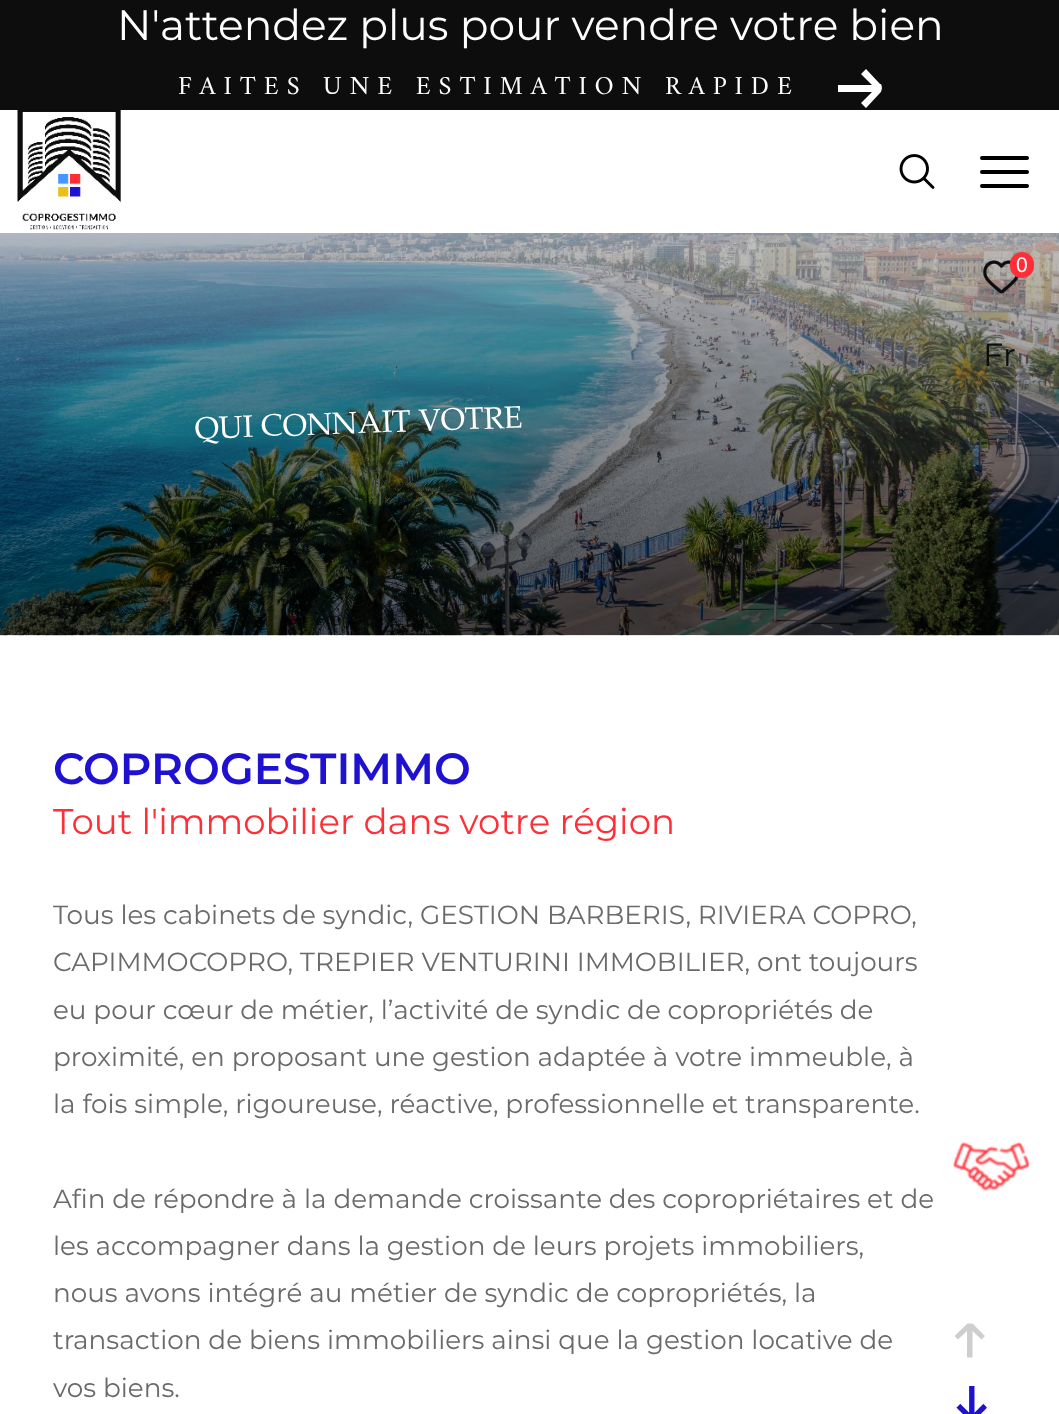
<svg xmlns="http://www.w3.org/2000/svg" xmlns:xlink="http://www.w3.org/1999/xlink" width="1059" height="1414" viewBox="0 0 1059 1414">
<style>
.cls-1{font:42.4px Montserrat;fill:#ffffff}
.cls-2{font:26.25px Amiri;letter-spacing:7.9px;fill:#ffffff}
.cls-3{font:21px Liberation Sans;fill:#ffffff}
.cls-4{font:32px Montserrat;fill:#0d0d0d}
.cls-5{font:31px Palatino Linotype;fill:#ffffff}
.cls-6{font:600 43.75px Montserrat;fill:#1f11d0}
.cls-7{font:35.6px Montserrat;fill:#ff2e37}
.cls-8{font:26.25px Montserrat;fill:#6a6a6a}
</style>
<defs>
<linearGradient id="g1" gradientUnits="userSpaceOnUse" x1="530" y1="-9" x2="530" y2="635"><stop offset="0" stop-color="#000000" stop-opacity="0"/><stop offset="1" stop-color="#000000" stop-opacity="0.64"/></linearGradient>
<clipPath id="clip1"><rect x="53" y="891" width="882" height="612"/></clipPath>
</defs>
<rect width="100%" height="100%" fill="#ffffff"/>
<rect fill="#0d0d0d" x="0" y="0" width="1059" height="110"/>
<path fill="#ffffff" d="M880 84L866 69L861 74L872 85H838V92H872L861 103L866 108L880 93C883 90 882 83 880 84Z"/>
<image xlink:href="image0.png" x="0" y="233" width="1059" height="403"/>
<rect fill="url(#g1)" x="0" y="233" width="1059" height="402"/>
<image xlink:href="image1.png" x="17" y="110" width="104" height="120"/>
<image xlink:href="image2.png" x="899" y="154" width="36" height="35"/>
<rect fill="#000000" x="980" y="170" width="49" height="4" rx="2"/>
<rect fill="#000000" x="980" y="156" width="49" height="4" rx="2"/>
<rect fill="#000000" x="980" y="184" width="49" height="4" rx="2"/>
<image xlink:href="image3.png" x="983" y="260" width="36" height="34"/>
<rect fill="#ff2e37" x="1010" y="252" width="24" height="26" rx="12"/>
<path fill="#cecece" d="M955 1335.5L967.5 1323.5C974 1323.5 972 1323 977.5 1328.5L985 1336L981.5 1339.5L972.5 1331V1357.5H967V1331L958 1339.5L955 1336.5Z"/>
<image xlink:href="image4.png" x="956" y="1386" width="31" height="28"/>
<image xlink:href="image5.png" x="953" y="1141" width="77" height="51"/>
<text class="cls-1" x="117" y="40">N'attendez plus pour vendre votre bien</text>
<text class="cls-2" x="178" y="94">FAITES UNE ESTIMATION RAPIDE</text>
<text class="cls-3" x="1016" y="272">0</text>
<text class="cls-4" x="983" y="366">Fr</text>
<text class="cls-5" x="195" y="439" transform="rotate(-2 195 439)">Q</text>
<text class="cls-5" x="219" y="438" transform="rotate(-2 219 438)">U</text>
<text class="cls-5" x="243" y="437" transform="rotate(-2 243 437)">I</text>
<text class="cls-5" x="261" y="436" transform="rotate(-2 261 436)">C</text>
<text class="cls-5" x="283" y="436" transform="rotate(-2 283 436)">O</text>
<text class="cls-5" x="307" y="435" transform="rotate(-2 307 435)">N</text>
<text class="cls-5" x="332" y="434" transform="rotate(-2 332 434)">N</text>
<text class="cls-5" x="358" y="433" transform="rotate(-2 358 433)">A</text>
<text class="cls-5" x="382" y="432" transform="rotate(-2 382 432)">I</text>
<text class="cls-5" x="392" y="432" transform="rotate(-2 392 432)">T</text>
<text class="cls-5" x="419" y="431" transform="rotate(-2 419 431)">V</text>
<text class="cls-5" x="441" y="430" transform="rotate(-2 441 430)">O</text>
<text class="cls-5" x="465" y="429" transform="rotate(-2 465 429)">T</text>
<text class="cls-5" x="484" y="429" transform="rotate(-2 484 429)">R</text>
<text class="cls-5" x="504" y="428" transform="rotate(-2 504 428)">E</text>
<text class="cls-6" x="53" y="784">COPROGESTIMMO</text>
<text class="cls-7" x="53" y="834">Tout l'immobilier dans votre région</text>
<g clip-path="url(#clip1)">
<text class="cls-8" x="53" y="924">Tous les cabinets de syndic, GESTION BARBERIS, RIVIERA COPRO,</text>
</g>
<text class="cls-8"><tspan x="53" y="971">CAPIMMOCOPRO, TREPIER VENTURINI IMMOBILIER, ont toujours</tspan><tspan x="53" y="1019">eu pour cœur de métier, l’activité de syndic de copropriétés de</tspan><tspan x="53" y="1066">proximité, en proposant une gestion adaptée à votre immeuble, à</tspan><tspan x="53" y="1113">la fois simple, rigoureuse, réactive, professionnelle et transparente.</tspan></text>
<text class="cls-8"><tspan x="53" y="1208">Afin de répondre à la demande croissante des copropriétaires et de</tspan><tspan x="53" y="1255">les accompagner dans la gestion de leurs projets immobiliers,</tspan><tspan x="53" y="1302">nous avons intégré au métier de syndic de copropriétés, la</tspan><tspan x="53" y="1349">transaction de biens immobiliers ainsi que la gestion locative de</tspan><tspan x="53" y="1397">vos biens.</tspan></text>
</svg>
